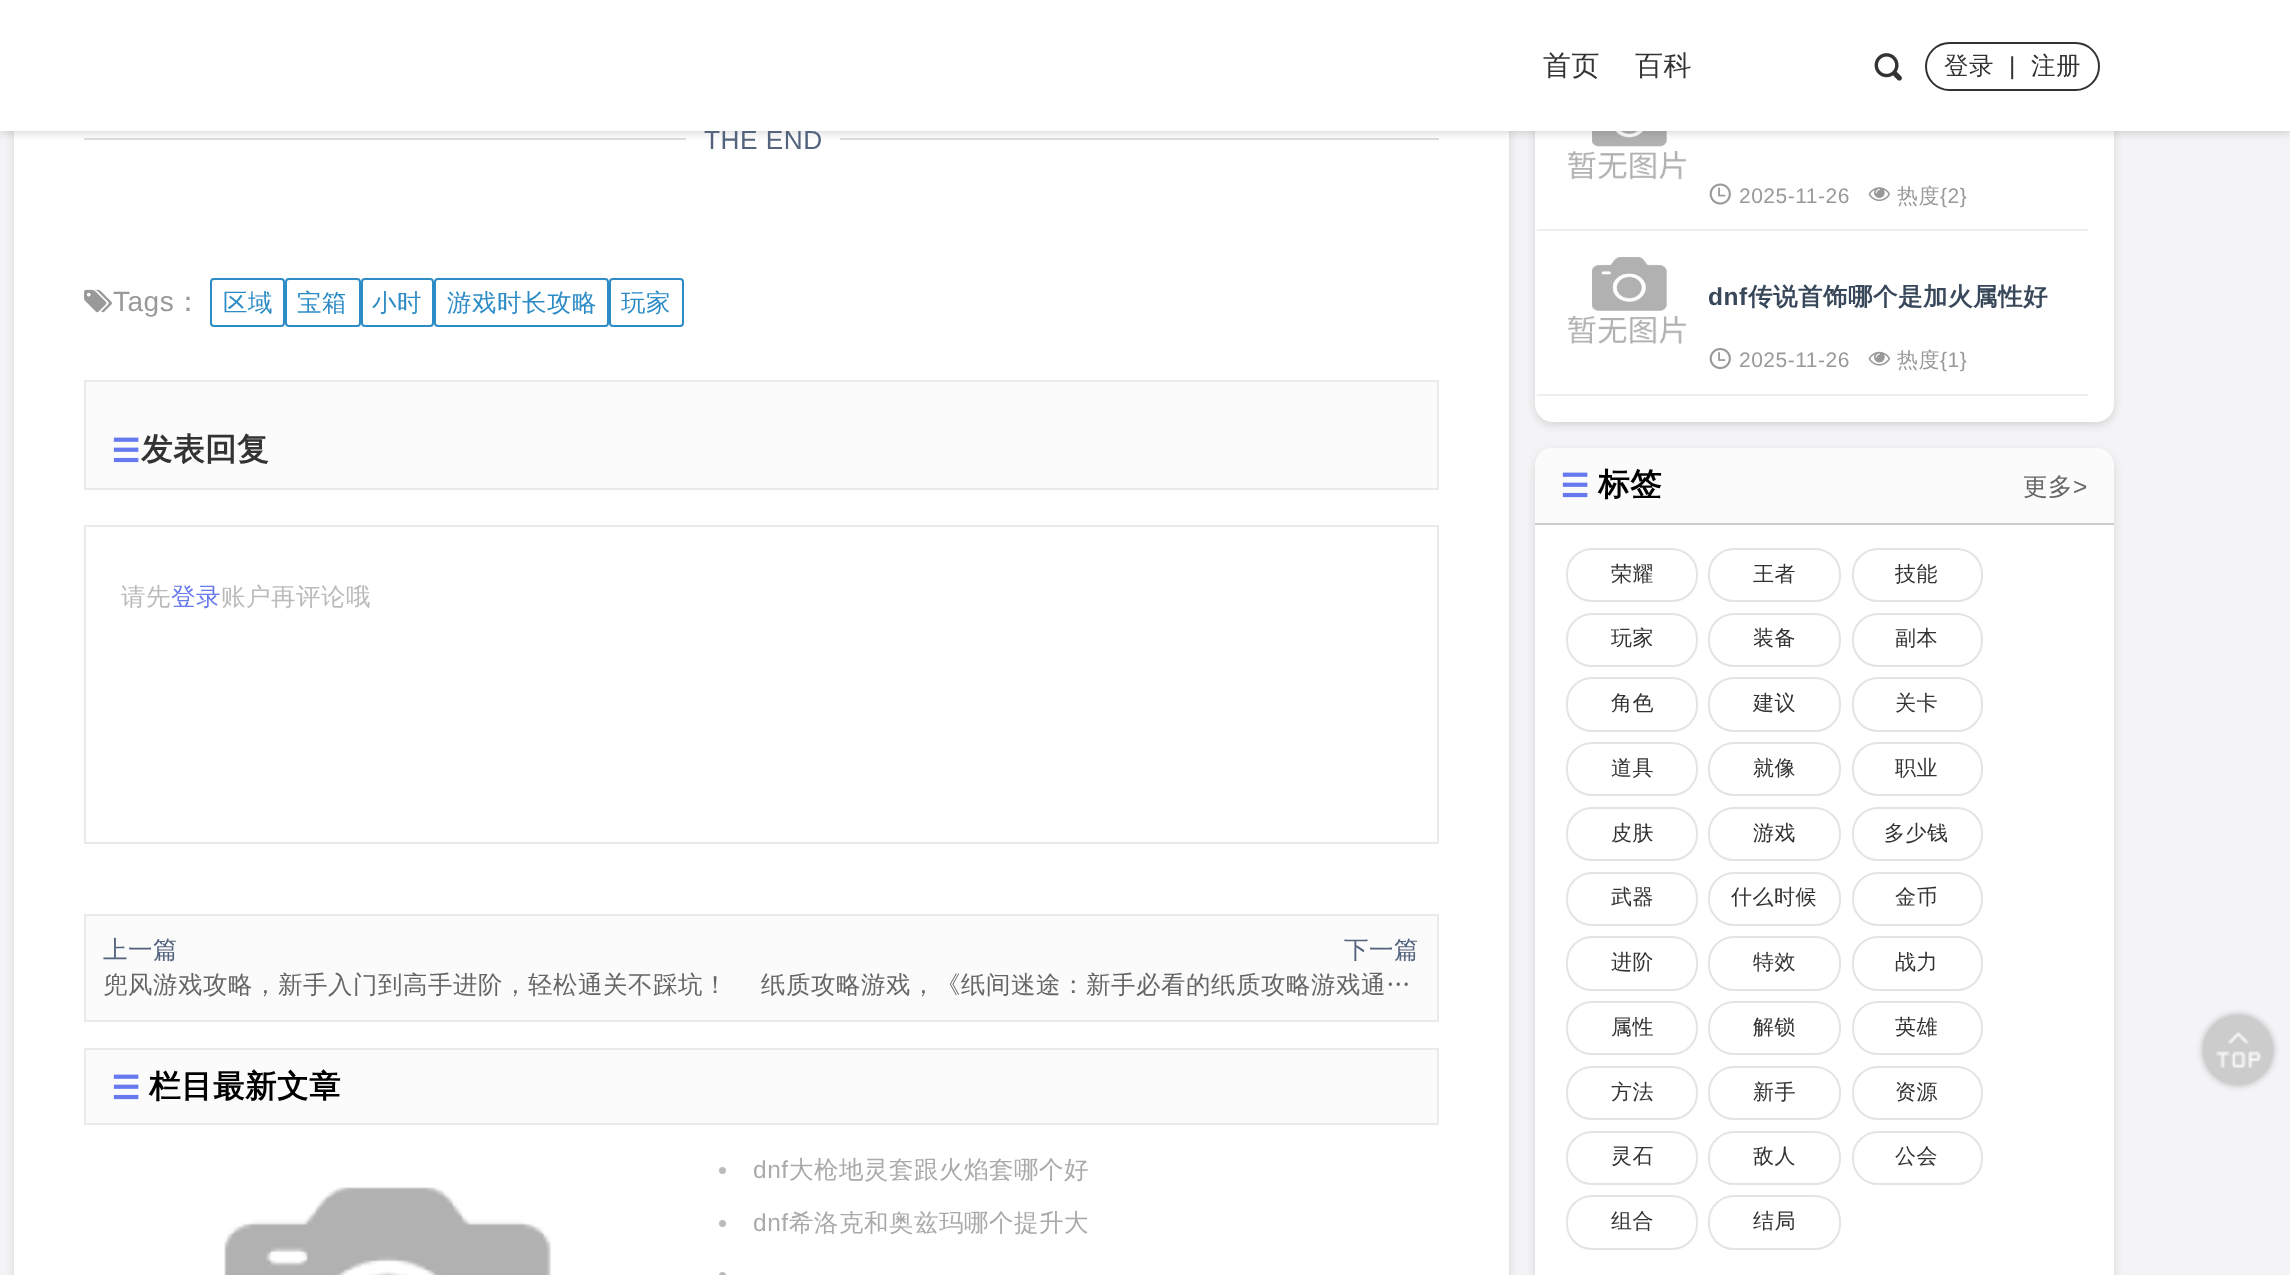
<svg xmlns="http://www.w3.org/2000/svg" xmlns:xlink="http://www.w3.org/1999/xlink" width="2290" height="1275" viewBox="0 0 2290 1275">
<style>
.cls-1{font:26.25px Liberation Sans;letter-spacing:0.5px;fill:#55647e}
.cls-2{font:500 24.5px WenQuanYi Zen Hei;letter-spacing:0.5px;fill:#333333}
.cls-3{font:24.5px Liberation Sans;letter-spacing:0.5px;fill:#333333}
.cls-4{font:500 28px WenQuanYi Zen Hei;letter-spacing:0.5px;fill:#333333}
.cls-5{font:28px Liberation Sans;letter-spacing:0.5px;fill:#999999}
.cls-6{font:500 28px WenQuanYi Zen Hei;letter-spacing:0.5px;fill:#999999}
.cls-7{font:500 24.5px WenQuanYi Zen Hei;letter-spacing:0.5px;fill:#2d8cc6}
.cls-8{font:bold 31.5px WenQuanYi Zen Hei;letter-spacing:0.5px;fill:#333333}
.cls-9{font:500 24.5px WenQuanYi Zen Hei;letter-spacing:0.5px;fill:#bbbbbb}
.cls-10{font:500 24.5px WenQuanYi Zen Hei;letter-spacing:0.5px;fill:#6679ef}
.cls-11{font:500 24.5px WenQuanYi Zen Hei;letter-spacing:0.5px;fill:#55647e}
.cls-12{font:500 24.5px WenQuanYi Zen Hei;letter-spacing:0.5px;fill:#666666}
.cls-13{font:bold 31.5px WenQuanYi Zen Hei;letter-spacing:0.5px;fill:#000000}
.cls-14{font:24.5px Liberation Sans;letter-spacing:0.5px;fill:#aaaaaa}
.cls-15{font:500 24.5px WenQuanYi Zen Hei;letter-spacing:0.5px;fill:#aaaaaa}
.cls-16{font:21px Liberation Sans;letter-spacing:0.5px;fill:#999999}
.cls-17{font:500 21px WenQuanYi Zen Hei;letter-spacing:0.5px;fill:#999999}
.cls-18{font:bold 24.5px Liberation Sans;letter-spacing:0.5px;fill:#38485a}
.cls-19{font:bold 24.5px WenQuanYi Zen Hei;letter-spacing:0.5px;fill:#38485a}
.cls-20{font:24.5px Liberation Sans;letter-spacing:0.5px;fill:#666666}
.cls-21{font:500 21px WenQuanYi Zen Hei;letter-spacing:0.5px;fill:#333333}
</style>
<rect width="100%" height="100%" fill="#f4f4f6"/>
<rect fill="#bbbbbb" fill-opacity="0.56" filter="blur(4.5px)" x="14" y="-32" width="1495" height="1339" rx="18"/>
<rect fill="#ffffff" x="14" y="131" width="1495" height="1144"/>
<rect fill="#dedede" x="84" y="138" width="1355" height="2"/>
<rect fill="#ffffff" x="686" y="138" width="154" height="2"/>
<rect fill="#bbbbbb" fill-opacity="0.56" filter="blur(4.5px)" x="1535" y="-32" width="579" height="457" rx="18"/>
<rect fill="#ffffff" x="1535" y="-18" width="579" height="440" rx="18"/>
<path fill="#eeeeee" d="M2088 231H1535L1538 229H2088Z"/>
<path fill="#ffffff" d="M1535 231V66H1538V229Z"/>
<image xlink:href="image4.png" x="1568" y="131" width="119" height="49"/>
<rect fill="#000000" fill-opacity="0.15" filter="blur(4.5px)" x="0" y="2" width="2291" height="131"/>
<image xlink:href="image1.png" x="84" y="289" width="28" height="24"/>
<rect fill="none" stroke="#2d8cc6" stroke-width="2" x="211" y="279" width="73" height="47" rx="3"/>
<rect fill="none" stroke="#2d8cc6" stroke-width="2" x="286" y="279" width="74" height="47" rx="3"/>
<rect fill="none" stroke="#2d8cc6" stroke-width="2" x="362" y="279" width="71" height="47" rx="3"/>
<rect fill="none" stroke="#2d8cc6" stroke-width="2" x="435" y="279" width="173" height="47" rx="3"/>
<rect fill="none" stroke="#2d8cc6" stroke-width="2" x="610" y="279" width="73" height="47" rx="3"/>
<rect fill="#fbfbfb" stroke="#eaeaea" stroke-width="2" x="85" y="381" width="1353" height="108"/>
<image xlink:href="image2.png" x="113" y="437" width="26" height="26"/>
<rect fill="none" stroke="#eaeaea" stroke-width="2" x="85" y="526" width="1353" height="317"/>
<rect fill="#fbfbfb" stroke="#eaeaea" stroke-width="2" x="85" y="915" width="1353" height="106"/>
<rect fill="#fbfbfb" stroke="#eaeaea" stroke-width="2" x="85" y="1049" width="1353" height="75"/>
<image xlink:href="image2.png" x="113" y="1074" width="26" height="26"/>
<image xlink:href="image3.png" x="224" y="1187" width="327" height="88"/>
<circle fill="#bbbbbb" cx="722.5" cy="1170.5" r="3.5"/>
<circle fill="#bbbbbb" cx="722.5" cy="1223.5" r="3.5"/>
<circle fill="#bbbbbb" cx="722.5" cy="1275.5" r="3.5"/>
<image xlink:href="image5.png" x="1709" y="183" width="22" height="22"/>
<image xlink:href="image6.png" x="1868" y="187" width="22" height="14"/>
<path fill="#eeeeee" d="M2088 396H1535L1538 394H2088Z"/>
<path fill="#ffffff" d="M1535 396V231H1538V394Z"/>
<image xlink:href="image7.png" x="1568" y="257" width="119" height="87"/>
<image xlink:href="image8.png" x="1709" y="348" width="22" height="22"/>
<image xlink:href="image9.png" x="1868" y="351" width="22" height="15"/>
<rect fill="#bbbbbb" fill-opacity="0.56" filter="blur(4.5px)" x="1535" y="452" width="579" height="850" rx="18"/>
<rect fill="#ffffff" x="1535" y="448" width="579" height="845" rx="18"/>
<path fill="#fbfbfb" d="M1553 448H2096C2106 448 2114 456 2114 466V525H1535V466C1535 456 1543 448 1553 448Z"/>
<rect fill="#cccccc" x="1535" y="523" width="579" height="2"/>
<image xlink:href="image2.png" x="1562" y="472" width="26" height="26"/>
<rect fill="none" stroke="#e4e4e4" stroke-width="2" x="1567" y="549" width="130" height="52" rx="25"/>
<rect fill="none" stroke="#e4e4e4" stroke-width="2" x="1709" y="549" width="131" height="52" rx="25"/>
<rect fill="none" stroke="#e4e4e4" stroke-width="2" x="1853" y="549" width="129" height="52" rx="25"/>
<rect fill="none" stroke="#e4e4e4" stroke-width="2" x="1567" y="614" width="130" height="52" rx="25"/>
<rect fill="none" stroke="#e4e4e4" stroke-width="2" x="1709" y="614" width="131" height="52" rx="25"/>
<rect fill="none" stroke="#e4e4e4" stroke-width="2" x="1853" y="614" width="129" height="52" rx="25"/>
<rect fill="none" stroke="#e4e4e4" stroke-width="2" x="1567" y="678" width="130" height="53" rx="25"/>
<rect fill="none" stroke="#e4e4e4" stroke-width="2" x="1709" y="678" width="131" height="53" rx="25"/>
<rect fill="none" stroke="#e4e4e4" stroke-width="2" x="1853" y="678" width="129" height="53" rx="25"/>
<rect fill="none" stroke="#e4e4e4" stroke-width="2" x="1567" y="743" width="130" height="52" rx="25"/>
<rect fill="none" stroke="#e4e4e4" stroke-width="2" x="1709" y="743" width="131" height="52" rx="25"/>
<rect fill="none" stroke="#e4e4e4" stroke-width="2" x="1853" y="743" width="129" height="52" rx="25"/>
<rect fill="none" stroke="#e4e4e4" stroke-width="2" x="1567" y="808" width="130" height="52" rx="25"/>
<rect fill="none" stroke="#e4e4e4" stroke-width="2" x="1709" y="808" width="131" height="52" rx="25"/>
<rect fill="none" stroke="#e4e4e4" stroke-width="2" x="1853" y="808" width="129" height="52" rx="25"/>
<rect fill="none" stroke="#e4e4e4" stroke-width="2" x="1567" y="873" width="130" height="52" rx="25"/>
<rect fill="none" stroke="#e4e4e4" stroke-width="2" x="1709" y="873" width="131" height="52" rx="25"/>
<rect fill="none" stroke="#e4e4e4" stroke-width="2" x="1853" y="873" width="129" height="52" rx="25"/>
<rect fill="none" stroke="#e4e4e4" stroke-width="2" x="1567" y="937" width="130" height="53" rx="25"/>
<rect fill="none" stroke="#e4e4e4" stroke-width="2" x="1709" y="937" width="131" height="53" rx="25"/>
<rect fill="none" stroke="#e4e4e4" stroke-width="2" x="1853" y="937" width="129" height="53" rx="25"/>
<rect fill="none" stroke="#e4e4e4" stroke-width="2" x="1567" y="1002" width="130" height="52" rx="25"/>
<rect fill="none" stroke="#e4e4e4" stroke-width="2" x="1709" y="1002" width="131" height="52" rx="25"/>
<rect fill="none" stroke="#e4e4e4" stroke-width="2" x="1853" y="1002" width="129" height="52" rx="25"/>
<rect fill="none" stroke="#e4e4e4" stroke-width="2" x="1567" y="1067" width="130" height="52" rx="25"/>
<rect fill="none" stroke="#e4e4e4" stroke-width="2" x="1709" y="1067" width="131" height="52" rx="25"/>
<rect fill="none" stroke="#e4e4e4" stroke-width="2" x="1853" y="1067" width="129" height="52" rx="25"/>
<rect fill="none" stroke="#e4e4e4" stroke-width="2" x="1567" y="1132" width="130" height="52" rx="25"/>
<rect fill="none" stroke="#e4e4e4" stroke-width="2" x="1709" y="1132" width="131" height="52" rx="25"/>
<rect fill="none" stroke="#e4e4e4" stroke-width="2" x="1853" y="1132" width="129" height="52" rx="25"/>
<rect fill="none" stroke="#e4e4e4" stroke-width="2" x="1567" y="1196" width="130" height="53" rx="25"/>
<rect fill="none" stroke="#e4e4e4" stroke-width="2" x="1709" y="1196" width="131" height="53" rx="25"/>
<rect fill="#000000" fill-opacity="0.3" filter="blur(3.5px)" x="2203" y="1015" width="70" height="70" rx="35"/>
<circle fill="#cccccc" cx="2238" cy="1050" r="35"/>
<image xlink:href="image10.png" x="2215" y="1032" width="47" height="36"/>
<text class="cls-1" x="704" y="149">THE END</text>
<rect fill="#ffffff" x="0" y="0" width="2290" height="131"/>
<image xlink:href="image0.png" x="1874" y="53" width="28" height="28"/>
<rect fill="none" stroke="#333333" stroke-width="2" x="1926" y="43" width="173" height="47" rx="23.5"/>
<text class="cls-2" x="2031" y="74">注册</text>
<text class="cls-3" x="2009" y="74">|</text>
<text class="cls-2" x="1944" y="74">登录</text>
<text class="cls-4" x="1635" y="75">百科</text>
<text class="cls-4" x="1543" y="75">首页</text>
<text class="cls-5" x="113" y="311">Tags</text>
<text class="cls-6" x="174" y="311">：</text>
<text class="cls-7" x="223" y="311">区域</text>
<text class="cls-7" x="297" y="311">宝箱</text>
<text class="cls-7" x="372" y="311">小时</text>
<text class="cls-7" x="447" y="311">游戏时长攻略</text>
<text class="cls-7" x="621" y="311">玩家</text>
<text class="cls-8" x="141" y="460">发表回复</text>
<text class="cls-9" x="121" y="605">请先</text>
<text class="cls-10" x="171" y="605">登录</text>
<text class="cls-9" x="221" y="605">账户再评论哦</text>
<text class="cls-11" x="103" y="958">上一篇</text>
<text class="cls-12" x="103" y="993">兜风游戏攻略，新手入门到高手进阶，轻松通关不踩坑！</text>
<text class="cls-11" x="1344" y="958">下一篇</text>
<text class="cls-12" x="761" y="993">纸质攻略游戏，《纸间迷途：新手必看的纸质攻略游戏通…</text>
<text class="cls-13" x="149" y="1097">栏目最新文章</text>
<text class="cls-14" x="753" y="1178">dnf</text>
<text class="cls-15" x="789" y="1178">大枪地灵套跟火焰套哪个好</text>
<text class="cls-14" x="753" y="1231">dnf</text>
<text class="cls-15" x="789" y="1231">希洛克和奥兹玛哪个提升大</text>
<text class="cls-16" x="1739" y="203">2025-11-26</text>
<text class="cls-17" x="1897" y="203">热度</text>
<text class="cls-16" x="1940" y="203">{2}</text>
<text class="cls-18" x="1708" y="305">dnf</text>
<text class="cls-19" x="1748" y="305">传说首饰哪个是加火属性好</text>
<text class="cls-16" x="1739" y="367">2025-11-26</text>
<text class="cls-17" x="1897" y="367">热度</text>
<text class="cls-16" x="1940" y="367">{1}</text>
<text class="cls-13" x="1598" y="495">标签</text>
<text class="cls-12" x="2023" y="495">更多</text>
<text class="cls-20" x="2073" y="495">&gt;</text>
<text class="cls-21" x="1611" y="581">荣耀</text>
<text class="cls-21" x="1753" y="581">王者</text>
<text class="cls-21" x="1895" y="581">技能</text>
<text class="cls-21" x="1611" y="645">玩家</text>
<text class="cls-21" x="1753" y="645">装备</text>
<text class="cls-21" x="1895" y="645">副本</text>
<text class="cls-21" x="1611" y="710">角色</text>
<text class="cls-21" x="1753" y="710">建议</text>
<text class="cls-21" x="1895" y="710">关卡</text>
<text class="cls-21" x="1611" y="775">道具</text>
<text class="cls-21" x="1753" y="775">就像</text>
<text class="cls-21" x="1895" y="775">职业</text>
<text class="cls-21" x="1611" y="840">皮肤</text>
<text class="cls-21" x="1753" y="840">游戏</text>
<text class="cls-21" x="1884" y="840">多少钱</text>
<text class="cls-21" x="1611" y="904">武器</text>
<text class="cls-21" x="1731" y="904">什么时候</text>
<text class="cls-21" x="1895" y="904">金币</text>
<text class="cls-21" x="1611" y="969">进阶</text>
<text class="cls-21" x="1753" y="969">特效</text>
<text class="cls-21" x="1895" y="969">战力</text>
<text class="cls-21" x="1611" y="1034">属性</text>
<text class="cls-21" x="1753" y="1034">解锁</text>
<text class="cls-21" x="1895" y="1034">英雄</text>
<text class="cls-21" x="1611" y="1099">方法</text>
<text class="cls-21" x="1753" y="1099">新手</text>
<text class="cls-21" x="1895" y="1099">资源</text>
<text class="cls-21" x="1611" y="1163">灵石</text>
<text class="cls-21" x="1753" y="1163">敌人</text>
<text class="cls-21" x="1895" y="1163">公会</text>
<text class="cls-21" x="1611" y="1228">组合</text>
<text class="cls-21" x="1753" y="1228">结局</text>
</svg>
